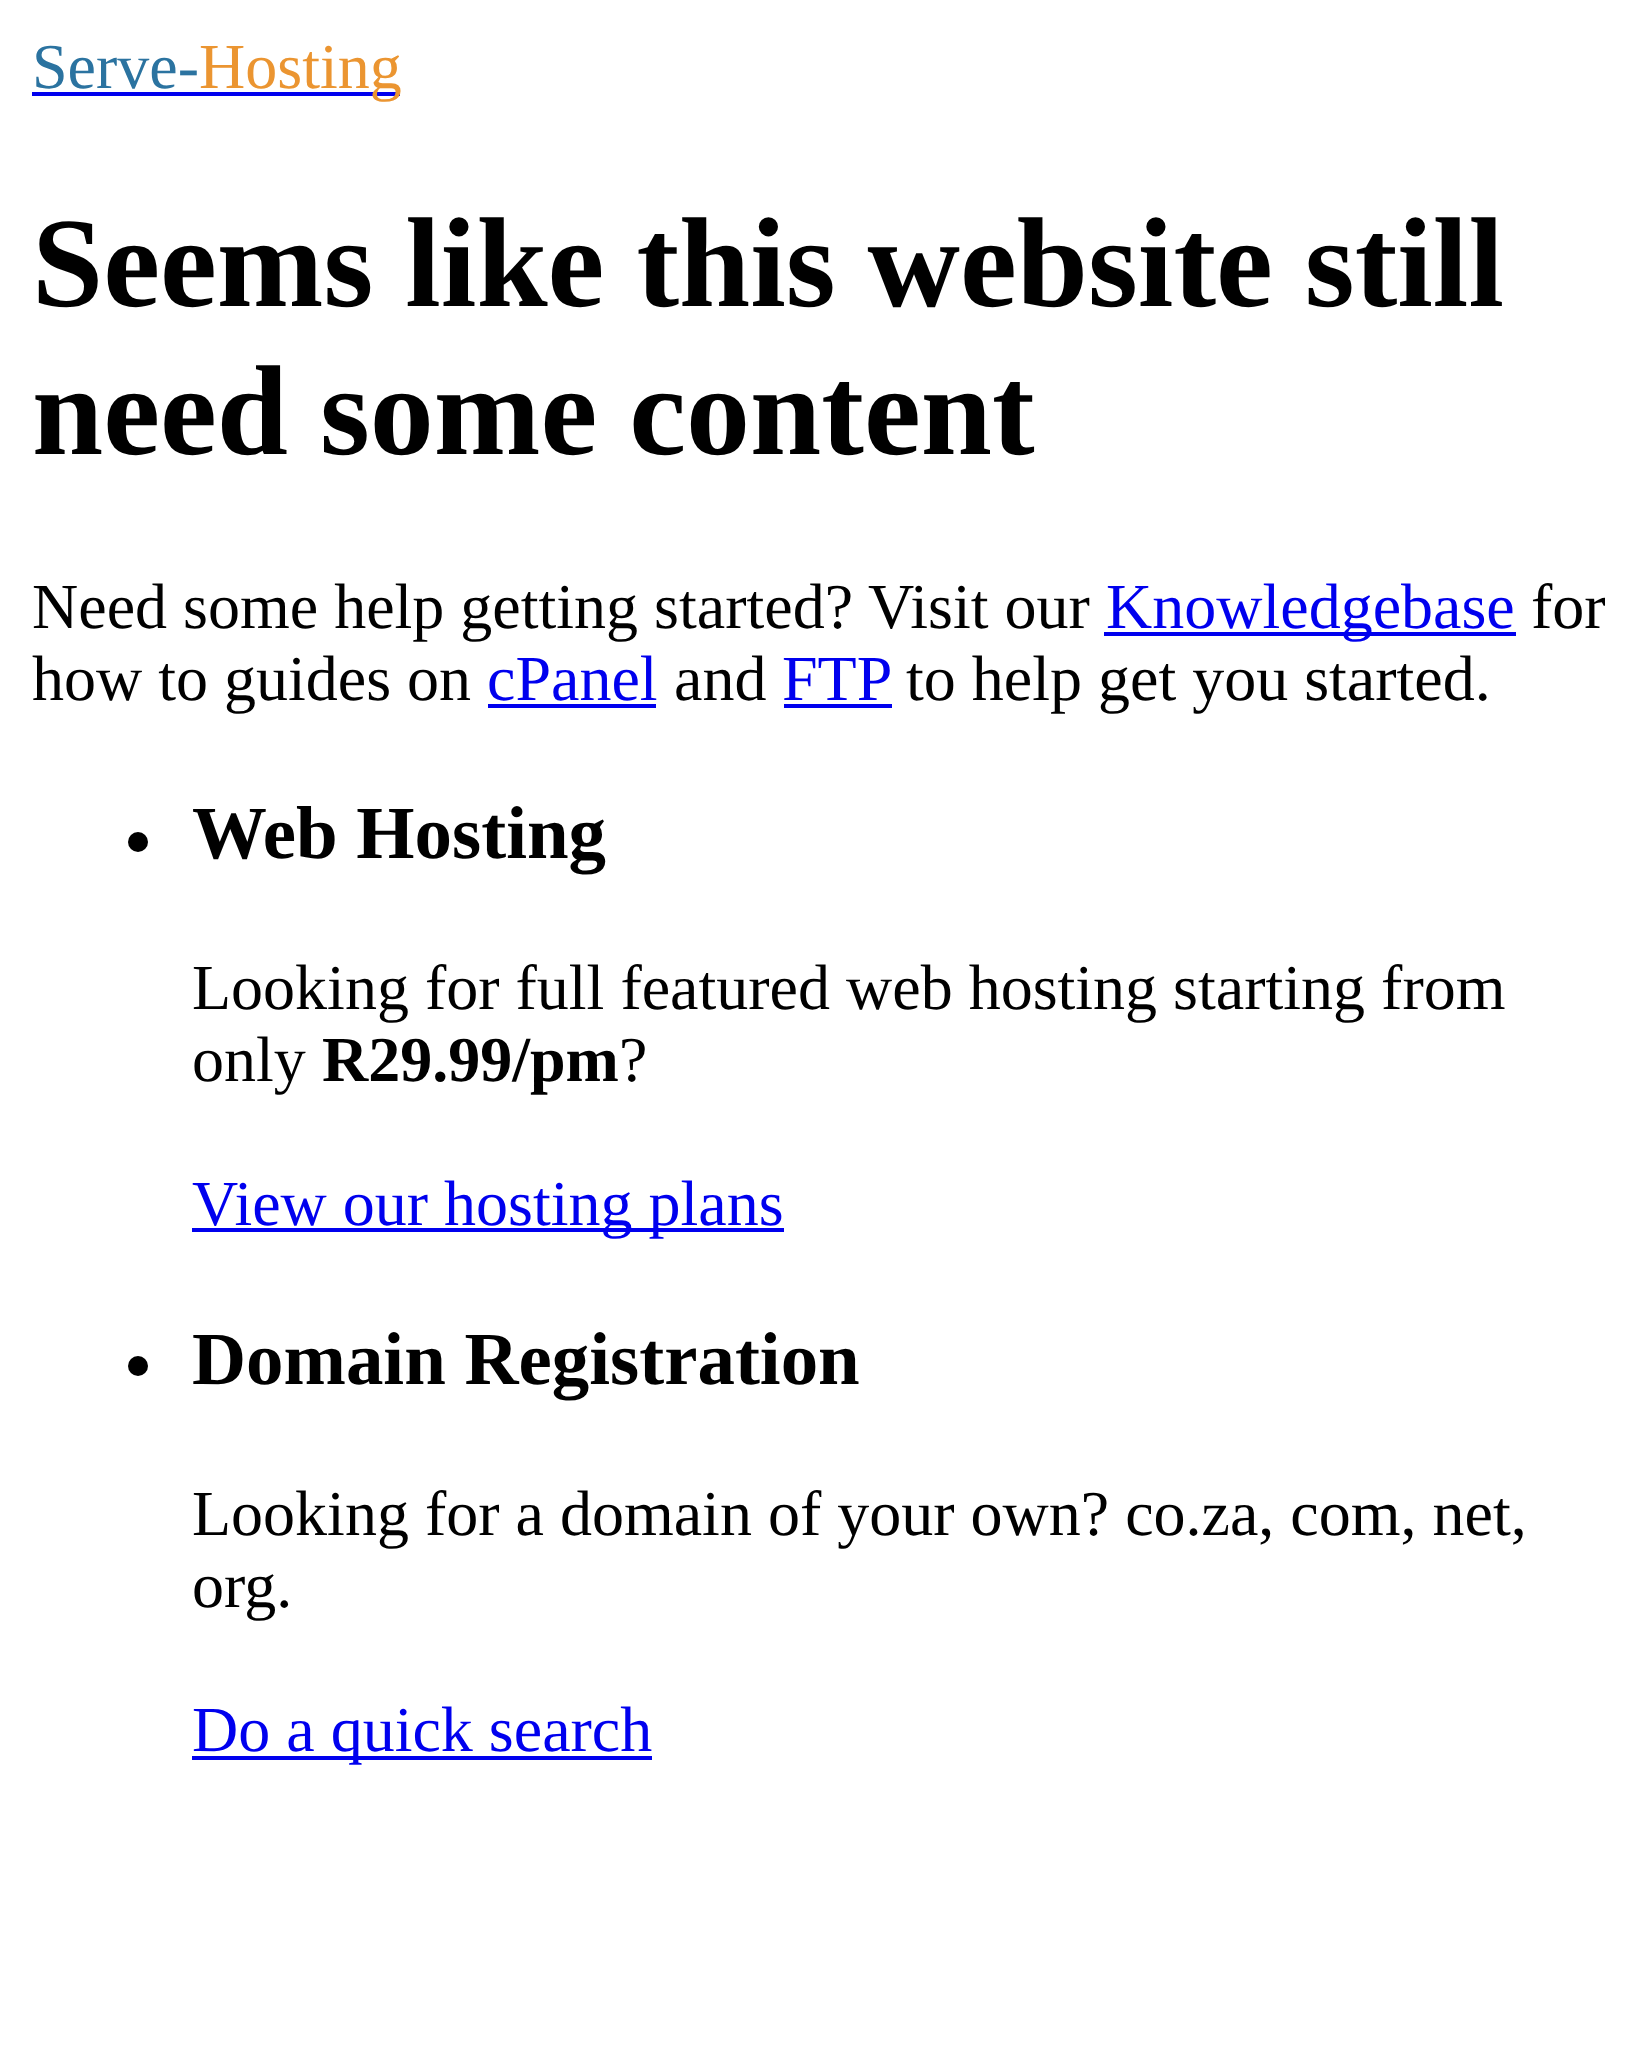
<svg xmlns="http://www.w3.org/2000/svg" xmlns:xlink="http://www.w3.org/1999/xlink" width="1649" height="2065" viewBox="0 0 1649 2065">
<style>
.cls-1{font:64px Liberation Serif;fill:#2b73a0}
.cls-2{font:64px Liberation Serif;fill:#eb9531}
.cls-3{font:bold 128px Liberation Serif;fill:#000000}
.cls-4{font:64px Liberation Serif;fill:#000000}
.cls-5{font:64px Liberation Serif;fill:#0000ee}
.cls-6{font:bold 74.9px Liberation Serif;fill:#000000}
.cls-7{font:bold 64px Liberation Serif;fill:#000000}
</style>
<rect width="100%" height="100%" fill="#ffffff"/>
<rect fill="#0000ee" x="32" y="92" width="368" height="4"/>
<rect fill="#0000ee" x="1104" y="632" width="412" height="4"/>
<rect fill="#0000ee" x="488" y="704" width="168" height="4"/>
<rect fill="#0000ee" x="784" y="704" width="108" height="4"/>
<circle fill="#000000" cx="138" cy="842" r="10"/>
<rect fill="#0000ee" x="192" y="1228" width="592" height="4"/>
<circle fill="#000000" cx="138" cy="1366" r="10"/>
<rect fill="#0000ee" x="192" y="1756" width="460" height="4"/>
<text class="cls-1" x="32" y="88">Serve-</text>
<text class="cls-2" x="199" y="88">Hosting</text>
<text class="cls-3"><tspan x="32" y="306">Seems like this website still</tspan><tspan x="32" y="454">need some content</tspan></text>
<text class="cls-4" x="32" y="628">Need some help getting started? Visit our</text>
<text class="cls-5" x="1106" y="628">Knowledgebase</text>
<text class="cls-4" x="1531" y="628">for</text>
<text class="cls-4" x="32" y="700">how to guides on</text>
<text class="cls-5" x="487" y="700">cPanel</text>
<text class="cls-4" x="674" y="700">and</text>
<text class="cls-5" x="782" y="700">FTP</text>
<text class="cls-4" x="906" y="700">to help get you started.</text>
<text class="cls-6" x="192" y="858">Web Hosting</text>
<text class="cls-4"><tspan x="192" y="1009">Looking for full featured web hosting starting from</tspan><tspan x="192" y="1081">only</tspan></text>
<text class="cls-7" x="322" y="1081">R29.99/pm</text>
<text class="cls-4" x="619" y="1081">?</text>
<text class="cls-5" x="192" y="1225">View our hosting plans</text>
<text class="cls-6" x="192" y="1384">Domain Registration</text>
<text class="cls-4"><tspan x="192" y="1535">Looking for a domain of your own? co.za, com, net,</tspan><tspan x="192" y="1607">org.</tspan></text>
<text class="cls-5" x="192" y="1751">Do a quick search</text>
</svg>
